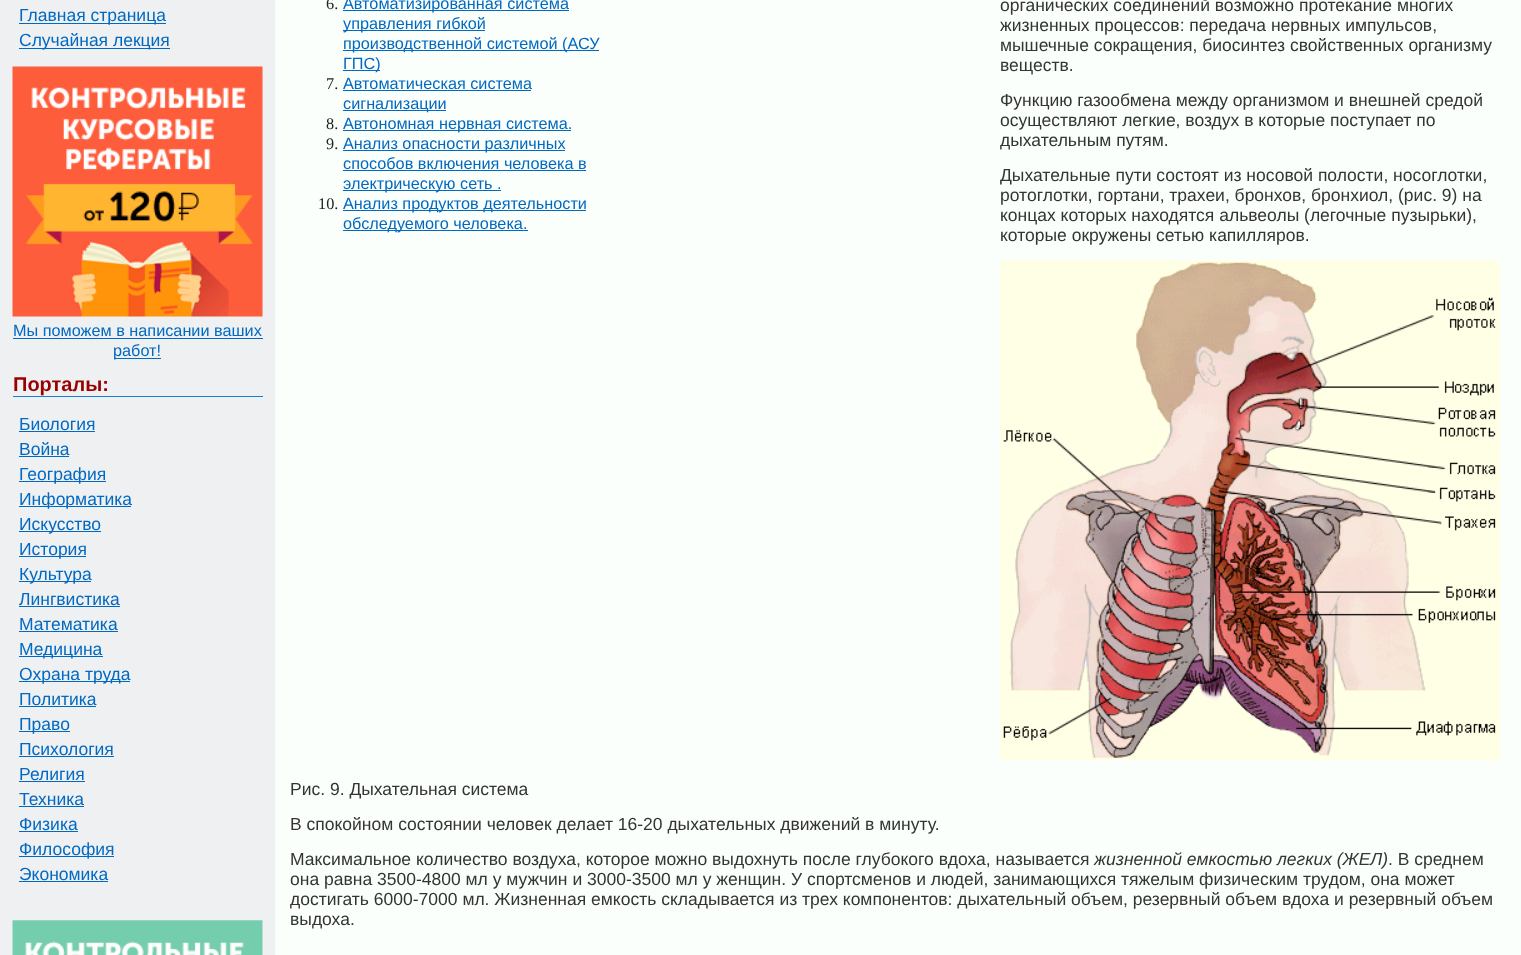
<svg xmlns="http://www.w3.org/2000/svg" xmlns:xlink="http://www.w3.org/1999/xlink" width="1521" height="955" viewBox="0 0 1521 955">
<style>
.cls-1{font:17.5px Liberation Sans;fill:#0169c2}
.cls-2{font:16.25px Liberation Sans;fill:#0169c2}
.cls-3{font:bold 20px Liberation Sans;fill:#990000}
.cls-4{font:16.25px Liberation Serif;fill:#222222}
.cls-5{font:17.5px Liberation Sans;fill:#343434}
.cls-6{font:italic 17.5px Liberation Sans;fill:#343434}
</style>
<rect width="100%" height="100%" fill="#eff0f2"/>
<rect fill="#0169c2" x="19" y="23" width="147" height="1"/>
<rect fill="#0169c2" x="19" y="48" width="151" height="1"/>
<image xlink:href="image0.png" x="12" y="66" width="251" height="251"/>
<rect fill="#0169c2" x="13" y="338" width="250" height="1"/>
<rect fill="#0169c2" x="114" y="358" width="47" height="1"/>
<rect fill="#1680d4" x="13" y="396" width="250" height="1"/>
<rect fill="#0169c2" x="19" y="431" width="76" height="1"/>
<rect fill="#0169c2" x="19" y="456" width="50" height="1"/>
<rect fill="#0169c2" x="19" y="481" width="87" height="1"/>
<rect fill="#0169c2" x="19" y="506" width="112" height="1"/>
<rect fill="#0169c2" x="19" y="531" width="82" height="1"/>
<rect fill="#0169c2" x="19" y="556" width="67" height="1"/>
<rect fill="#0169c2" x="19" y="581" width="72" height="1"/>
<rect fill="#0169c2" x="19" y="606" width="101" height="1"/>
<rect fill="#0169c2" x="19" y="631" width="99" height="1"/>
<rect fill="#0169c2" x="19" y="656" width="84" height="1"/>
<rect fill="#0169c2" x="19" y="681" width="111" height="1"/>
<rect fill="#0169c2" x="19" y="706" width="77" height="1"/>
<rect fill="#0169c2" x="19" y="731" width="51" height="1"/>
<rect fill="#0169c2" x="19" y="756" width="95" height="1"/>
<rect fill="#0169c2" x="19" y="781" width="66" height="1"/>
<rect fill="#0169c2" x="19" y="806" width="65" height="1"/>
<rect fill="#0169c2" x="19" y="831" width="59" height="1"/>
<rect fill="#0169c2" x="19" y="856" width="95" height="1"/>
<rect fill="#0169c2" x="19" y="881" width="89" height="1"/>
<image xlink:href="image1.png" x="12" y="920" width="251" height="35"/>
<rect fill="#fbfffb" x="275" y="0" width="1246" height="955"/>
<rect fill="#0169c2" x="343" y="10" width="226" height="1"/>
<rect fill="#0169c2" x="343" y="30" width="142" height="1"/>
<rect fill="#0169c2" x="343" y="50" width="256" height="1"/>
<rect fill="#0169c2" x="343" y="70" width="37" height="1"/>
<rect fill="#0169c2" x="343" y="90" width="188" height="1"/>
<rect fill="#0169c2" x="343" y="110" width="103" height="1"/>
<rect fill="#0169c2" x="343" y="130" width="228" height="1"/>
<rect fill="#0169c2" x="343" y="150" width="222" height="1"/>
<rect fill="#0169c2" x="343" y="170" width="243" height="1"/>
<rect fill="#0169c2" x="343" y="190" width="158" height="1"/>
<rect fill="#0169c2" x="343" y="210" width="243" height="1"/>
<rect fill="#0169c2" x="343" y="230" width="185" height="1"/>
<image xlink:href="image2.png" x="1000" y="260" width="500" height="501"/>
<text class="cls-1"><tspan x="19" y="21">Главная страница</tspan><tspan x="19" y="46">Случайная лекция</tspan></text>
<text class="cls-2" x="13" y="336">Мы поможем в написании ваших</text>
<text class="cls-2" x="113" y="356">работ!</text>
<text class="cls-3" x="13" y="391">Порталы:</text>
<text class="cls-1"><tspan x="19" y="430">Биология</tspan><tspan x="19" y="455">Война</tspan><tspan x="19" y="480">География</tspan><tspan x="19" y="505">Информатика</tspan><tspan x="19" y="530">Искусство</tspan><tspan x="19" y="555">История</tspan><tspan x="19" y="580">Культура</tspan><tspan x="19" y="605">Лингвистика</tspan><tspan x="19" y="630">Математика</tspan><tspan x="19" y="655">Медицина</tspan><tspan x="19" y="680">Охрана труда</tspan><tspan x="19" y="705">Политика</tspan><tspan x="19" y="730">Право</tspan><tspan x="19" y="755">Психология</tspan><tspan x="19" y="780">Религия</tspan><tspan x="19" y="805">Техника</tspan><tspan x="19" y="830">Физика</tspan><tspan x="19" y="855">Философия</tspan><tspan x="19" y="880">Экономика</tspan></text>
<text class="cls-4" x="326" y="9">6.</text>
<text class="cls-2"><tspan x="343" y="9">Автоматизированная система</tspan><tspan x="343" y="29">управления гибкой</tspan><tspan x="343" y="49">производственной системой (АСУ</tspan><tspan x="343" y="69">ГПС)</tspan></text>
<text class="cls-4" x="326" y="89">7.</text>
<text class="cls-2"><tspan x="343" y="89">Автоматическая система</tspan><tspan x="343" y="109">сигнализации</tspan></text>
<text class="cls-4" x="326" y="129">8.</text>
<text class="cls-2" x="343" y="129">Автономная нервная система.</text>
<text class="cls-4" x="326" y="149">9.</text>
<text class="cls-2"><tspan x="343" y="149">Анализ опасности различных</tspan><tspan x="343" y="169">способов включения человека в</tspan><tspan x="343" y="189">электрическую сеть .</tspan></text>
<text class="cls-4" x="318" y="209">10.</text>
<text class="cls-2"><tspan x="343" y="209">Анализ продуктов деятельности</tspan><tspan x="343" y="229">обследуемого человека.</tspan></text>
<text class="cls-5"><tspan x="1000" y="11">органических соединений возможно протекание многих</tspan><tspan x="1000" y="31">жизненных процессов: передача нервных импульсов,</tspan><tspan x="1000" y="51">мышечные сокращения, биосинтез свойственных организму</tspan><tspan x="1000" y="71">веществ.</tspan></text>
<text class="cls-5"><tspan x="1000" y="106">Функцию газообмена между организмом и внешней средой</tspan><tspan x="1000" y="126">осуществляют легкие, воздух в которые поступает по</tspan><tspan x="1000" y="146">дыхательным путям.</tspan></text>
<text class="cls-5"><tspan x="1000" y="181">Дыхательные пути состоят из носовой полости, носоглотки,</tspan><tspan x="1000" y="201">ротоглотки, гортани, трахеи, бронхов, бронхиол, (рис. 9) на</tspan><tspan x="1000" y="221">концах которых находятся альвеолы (легочные пузырьки),</tspan><tspan x="1000" y="241">которые окружены сетью капилляров.</tspan></text>
<text class="cls-5" x="290" y="795">Рис. 9. Дыхательная система</text>
<text class="cls-5" x="290" y="830">В спокойном состоянии человек делает 16-20 дыхательных движений в минуту.</text>
<text class="cls-5" x="290" y="865">Максимальное количество воздуха, которое можно выдохнуть после глубокого вдоха, называется</text>
<text class="cls-6" x="1094" y="865">жизненной емкостью легких (ЖЕЛ)</text>
<text class="cls-5" x="1388" y="865">. В среднем</text>
<text class="cls-5"><tspan x="290" y="885">она равна 3500-4800 мл у мужчин и 3000-3500 мл у женщин. У спортсменов и людей, занимающихся тяжелым физическим трудом, она может</tspan><tspan x="290" y="905">достигать 6000-7000 мл. Жизненная емкость складывается из трех компонентов: дыхательный объем, резервный объем вдоха и резервный объем</tspan><tspan x="290" y="925">выдоха.</tspan></text>
</svg>
